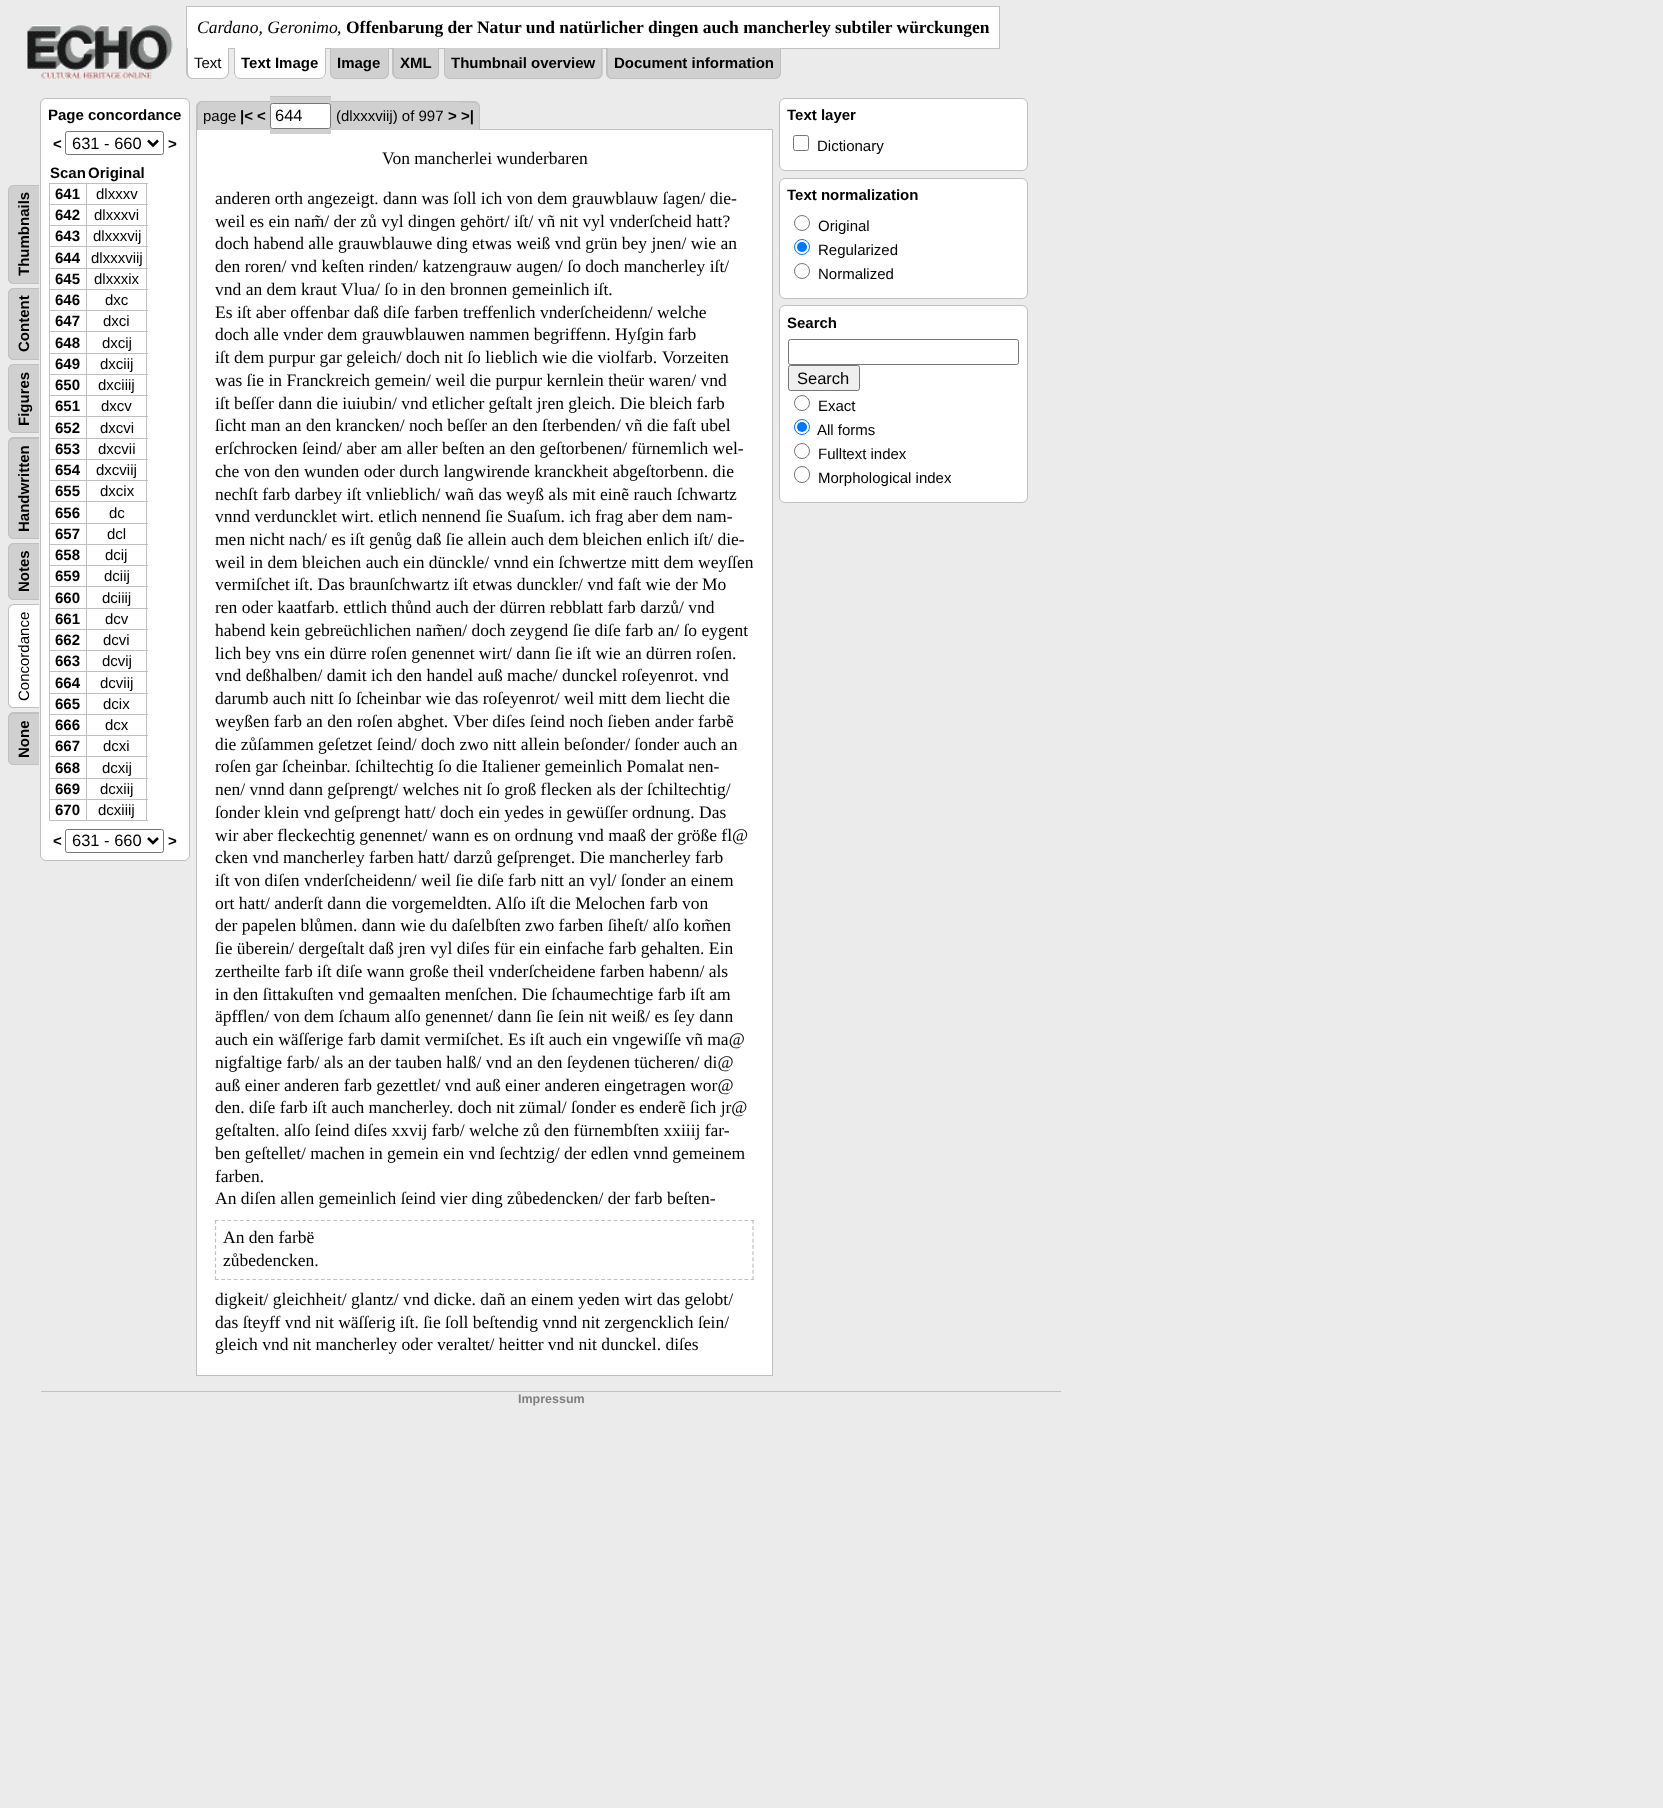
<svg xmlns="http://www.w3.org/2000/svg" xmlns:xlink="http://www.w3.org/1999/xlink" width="1663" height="1808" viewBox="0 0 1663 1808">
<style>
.cls-1{font:italic 17.5px Liberation Serif;fill:#000000}
.cls-2{font:17.5px Liberation Serif;fill:#000000}
.cls-3{font:bold 17.5px Liberation Serif;fill:#000000}
.cls-4{font:15px Liberation Sans;fill:#000000}
.cls-5{font:bold 15px Liberation Sans;fill:#000000}
.cls-6{font:16.5px Liberation Sans;fill:#000000}
.cls-7{font:bold 12.5px Liberation Sans;fill:#808080}
</style>
<rect width="100%" height="100%" fill="#ebebeb"/>
<image xlink:href="image0.png" x="27" y="25" width="146" height="54"/>
<rect fill="#ffffff" stroke="#c0c0c0" x="186.5" y="6.5" width="813" height="42"/>
<path fill="#ffffff" d="M186 48H229V73C229 76.5 226.5 79 223 79H192C188.5 79 186 76.5 186 73Z"/>
<path fill="#c0c0c0" fill-rule="evenodd" d="M186 48H229V72C229 76 226 79 222 79H192C189 79 186 76 186 72ZM188 48H228V72C228 75 225 78 222 78H192C190 78 188 75 188 72Z"/>
<path fill="#ffffff" d="M234 48H326V73C326 76.5 323.5 79 320 79H240C236.5 79 234 76.5 234 73Z"/>
<path fill="#c0c0c0" fill-rule="evenodd" d="M234 48H326V72C326 76 323 79 320 79H240C237 79 234 76 234 72ZM235 48H325V72C325 75 323 78 320 78H240C237 78 235 75 235 72Z"/>
<path fill="#d0d0d0" d="M330 48H389V73C389 76.5 386.5 79 383 79H336C332.5 79 330 76.5 330 73Z"/>
<path fill="#c0c0c0" fill-rule="evenodd" d="M330 48H389V72C389 76 386 79 382 79H336C333 79 330 76 330 72ZM331 48H388V72C388 75 385 78 382 78H336C333 78 331 75 331 72Z"/>
<path fill="#d0d0d0" d="M393 48H439V73C439 76.5 436.5 79 433 79H399C395.5 79 393 76.5 393 73Z"/>
<path fill="#c0c0c0" fill-rule="evenodd" d="M392 48H439V72C439 76 436 79 432 79H399C395 79 392 76 392 72ZM394 48H438V72C438 75 435 78 432 78H399C396 78 394 75 394 72Z"/>
<path fill="#d0d0d0" d="M444 48H603V73C603 76.5 600.5 79 597 79H450C446.5 79 444 76.5 444 73Z"/>
<path fill="#c0c0c0" fill-rule="evenodd" d="M444 48H602V72C602 76 600 79 596 79H450C447 79 444 76 444 72ZM445 48H601V72C601 75 599 78 596 78H450C447 78 445 75 445 72Z"/>
<path fill="#d0d0d0" d="M606 48H781V73C781 76.5 778.5 79 775 79H612C608.5 79 606 76.5 606 73Z"/>
<path fill="#c0c0c0" fill-rule="evenodd" d="M606 48H781V72C781 76 778 79 775 79H612C609 79 606 76 606 72ZM608 48H780V72C780 75 778 78 775 78H612C610 78 608 75 608 72Z"/>
<path fill="#d0d0d0" d="M8 278V191C8 188 10 185 14 185H39V284H14C10 284 8 281 8 278Z"/>
<path fill="#c0c0c0" fill-rule="evenodd" d="M8 278V191C8 188 10 185 14 185H39V284H14C10 284 8 281 8 278ZM9 278V191C9 188 11 186 14 186H39V283H14C11 283 9 280 9 278Z"/>
<path fill="#d0d0d0" d="M8 354V294C8 291 10 288 14 288H39V360H14C10 360 8 357 8 354Z"/>
<path fill="#c0c0c0" fill-rule="evenodd" d="M8 354V294C8 291 10 288 14 288H39V360H14C10 360 8 357 8 354ZM9 354V294C9 292 11 289 14 289H39V359H14C11 359 9 356 9 354Z"/>
<path fill="#d0d0d0" d="M8 427V370C8 367 10 364 14 364H39V433H14C10 433 8 430 8 427Z"/>
<path fill="#c0c0c0" fill-rule="evenodd" d="M8 427V370C8 367 10 364 14 364H39V433H14C10 433 8 430 8 427ZM9 427V370C9 367 11 365 14 365H39V432H14C11 432 9 430 9 427Z"/>
<path fill="#d0d0d0" d="M8 533V444C8 440 10 437 14 437H39V539H14C10 539 8 536 8 533Z"/>
<path fill="#c0c0c0" fill-rule="evenodd" d="M8 533V444C8 440 10 437 14 437H39V539H14C10 539 8 536 8 533ZM9 533V444C9 441 11 439 14 439H39V538H14C11 538 9 536 9 533Z"/>
<path fill="#d0d0d0" d="M8 594V549C8 546 10 543 14 543H39V600H14C10 600 8 597 8 594Z"/>
<path fill="#c0c0c0" fill-rule="evenodd" d="M8 594V549C8 546 10 543 14 543H39V600H14C10 600 8 597 8 594ZM9 594V549C9 547 11 544 14 544H39V599H14C11 599 9 596 9 594Z"/>
<path fill="#ffffff" d="M8 702V610C8 607 10 604 14 604H39V708H14C10 708 8 706 8 702Z"/>
<path fill="#c0c0c0" fill-rule="evenodd" d="M8 702V610C8 607 10 604 14 604H39V708H14C10 708 8 706 8 702ZM9 702V610C9 608 11 605 14 605H39V707H14C11 707 9 705 9 702Z"/>
<path fill="#d0d0d0" d="M8 759V719C8 715 10 712 14 712H39V765H14C10 765 8 762 8 759Z"/>
<path fill="#c0c0c0" fill-rule="evenodd" d="M8 759V719C8 715 10 712 14 712H39V765H14C10 765 8 762 8 759ZM9 759V719C9 716 11 714 14 714H39V764H14C11 764 9 762 9 759Z"/>
<rect fill="#ffffff" stroke="#c0c0c0" x="40.5" y="98.5" width="149" height="762" rx="5.5"/>
<rect fill="none" stroke="#767676" x="65.5" y="131.5" width="98" height="23" rx="2"/>
<path fill="none" stroke="#000000" stroke-width="2.5" d="M148 140.5L153 145.5L158 140.5"/>
<rect fill="#c0c0c0" x="86" y="183" width="62" height="1"/>
<rect fill="#c0c0c0" x="86" y="204" width="62" height="1"/>
<rect fill="#c0c0c0" x="86" y="225" width="62" height="1"/>
<rect fill="#c0c0c0" x="86" y="246" width="62" height="1"/>
<rect fill="#c0c0c0" x="86" y="268" width="62" height="1"/>
<rect fill="#c0c0c0" x="86" y="289" width="62" height="1"/>
<rect fill="#c0c0c0" x="86" y="310" width="62" height="1"/>
<rect fill="#c0c0c0" x="86" y="331" width="62" height="1"/>
<rect fill="#c0c0c0" x="86" y="353" width="62" height="1"/>
<rect fill="#c0c0c0" x="86" y="374" width="62" height="1"/>
<rect fill="#c0c0c0" x="86" y="395" width="62" height="1"/>
<rect fill="#c0c0c0" x="86" y="416" width="62" height="1"/>
<rect fill="#c0c0c0" x="86" y="438" width="62" height="1"/>
<rect fill="#c0c0c0" x="86" y="459" width="62" height="1"/>
<rect fill="#c0c0c0" x="86" y="480" width="62" height="1"/>
<rect fill="#c0c0c0" x="86" y="501" width="62" height="1"/>
<rect fill="#c0c0c0" x="86" y="523" width="62" height="1"/>
<rect fill="#c0c0c0" x="86" y="544" width="62" height="1"/>
<rect fill="#c0c0c0" x="86" y="565" width="62" height="1"/>
<rect fill="#c0c0c0" x="86" y="586" width="62" height="1"/>
<rect fill="#c0c0c0" x="86" y="608" width="62" height="1"/>
<rect fill="#c0c0c0" x="86" y="629" width="62" height="1"/>
<rect fill="#c0c0c0" x="86" y="650" width="62" height="1"/>
<rect fill="#c0c0c0" x="86" y="671" width="62" height="1"/>
<rect fill="#c0c0c0" x="86" y="693" width="62" height="1"/>
<rect fill="#c0c0c0" x="86" y="714" width="62" height="1"/>
<rect fill="#c0c0c0" x="86" y="735" width="62" height="1"/>
<rect fill="#c0c0c0" x="86" y="756" width="62" height="1"/>
<rect fill="#c0c0c0" x="86" y="778" width="62" height="1"/>
<rect fill="#c0c0c0" x="86" y="799" width="62" height="1"/>
<rect fill="#c0c0c0" x="146" y="799" width="1" height="22"/>
<rect fill="#c0c0c0" x="86" y="820" width="62" height="1"/>
<rect fill="#c0c0c0" x="86" y="799" width="1" height="22"/>
<rect fill="#c0c0c0" x="49" y="799" width="39" height="1"/>
<rect fill="#c0c0c0" x="86" y="778" width="1" height="22"/>
<rect fill="#c0c0c0" x="49" y="778" width="39" height="1"/>
<rect fill="#c0c0c0" x="86" y="756" width="1" height="23"/>
<rect fill="#c0c0c0" x="49" y="756" width="39" height="1"/>
<rect fill="#c0c0c0" x="86" y="735" width="1" height="23"/>
<rect fill="#c0c0c0" x="49" y="735" width="39" height="1"/>
<rect fill="#c0c0c0" x="86" y="714" width="1" height="22"/>
<rect fill="#c0c0c0" x="49" y="714" width="39" height="1"/>
<rect fill="#c0c0c0" x="86" y="693" width="1" height="22"/>
<rect fill="#c0c0c0" x="49" y="693" width="39" height="1"/>
<rect fill="#c0c0c0" x="86" y="671" width="1" height="23"/>
<rect fill="#c0c0c0" x="49" y="671" width="39" height="1"/>
<rect fill="#c0c0c0" x="86" y="650" width="1" height="23"/>
<rect fill="#c0c0c0" x="49" y="650" width="39" height="1"/>
<rect fill="#c0c0c0" x="86" y="629" width="1" height="22"/>
<rect fill="#c0c0c0" x="49" y="629" width="39" height="1"/>
<rect fill="#c0c0c0" x="86" y="608" width="1" height="22"/>
<rect fill="#c0c0c0" x="49" y="608" width="39" height="1"/>
<rect fill="#c0c0c0" x="86" y="586" width="1" height="23"/>
<rect fill="#c0c0c0" x="49" y="586" width="39" height="1"/>
<rect fill="#c0c0c0" x="86" y="565" width="1" height="23"/>
<rect fill="#c0c0c0" x="49" y="565" width="39" height="1"/>
<rect fill="#c0c0c0" x="86" y="544" width="1" height="22"/>
<rect fill="#c0c0c0" x="49" y="544" width="39" height="1"/>
<rect fill="#c0c0c0" x="86" y="523" width="1" height="22"/>
<rect fill="#c0c0c0" x="49" y="523" width="39" height="1"/>
<rect fill="#c0c0c0" x="86" y="501" width="1" height="23"/>
<rect fill="#c0c0c0" x="49" y="501" width="39" height="1"/>
<rect fill="#c0c0c0" x="86" y="480" width="1" height="23"/>
<rect fill="#c0c0c0" x="49" y="480" width="39" height="1"/>
<rect fill="#c0c0c0" x="86" y="459" width="1" height="22"/>
<rect fill="#c0c0c0" x="49" y="459" width="39" height="1"/>
<rect fill="#c0c0c0" x="86" y="438" width="1" height="22"/>
<rect fill="#c0c0c0" x="49" y="438" width="39" height="1"/>
<rect fill="#c0c0c0" x="86" y="416" width="1" height="23"/>
<rect fill="#c0c0c0" x="49" y="416" width="39" height="1"/>
<rect fill="#c0c0c0" x="86" y="395" width="1" height="23"/>
<rect fill="#c0c0c0" x="49" y="395" width="39" height="1"/>
<rect fill="#c0c0c0" x="86" y="374" width="1" height="22"/>
<rect fill="#c0c0c0" x="49" y="374" width="39" height="1"/>
<rect fill="#c0c0c0" x="86" y="353" width="1" height="22"/>
<rect fill="#c0c0c0" x="49" y="353" width="39" height="1"/>
<rect fill="#c0c0c0" x="86" y="331" width="1" height="23"/>
<rect fill="#c0c0c0" x="49" y="331" width="39" height="1"/>
<rect fill="#c0c0c0" x="86" y="310" width="1" height="23"/>
<rect fill="#c0c0c0" x="49" y="310" width="39" height="1"/>
<rect fill="#c0c0c0" x="86" y="289" width="1" height="22"/>
<rect fill="#c0c0c0" x="49" y="289" width="39" height="1"/>
<rect fill="#c0c0c0" x="86" y="268" width="1" height="22"/>
<rect fill="#c0c0c0" x="49" y="268" width="39" height="1"/>
<rect fill="#c0c0c0" x="86" y="246" width="1" height="23"/>
<rect fill="#c0c0c0" x="49" y="246" width="39" height="1"/>
<rect fill="#c0c0c0" x="86" y="225" width="1" height="23"/>
<rect fill="#c0c0c0" x="49" y="225" width="39" height="1"/>
<rect fill="#c0c0c0" x="86" y="204" width="1" height="22"/>
<rect fill="#c0c0c0" x="49" y="204" width="39" height="1"/>
<rect fill="#c0c0c0" x="86" y="183" width="1" height="22"/>
<rect fill="#c0c0c0" x="49" y="183" width="39" height="1"/>
<rect fill="#c0c0c0" x="49" y="820" width="39" height="1"/>
<rect fill="#c0c0c0" x="49" y="799" width="1" height="22"/>
<rect fill="#c0c0c0" x="49" y="778" width="1" height="22"/>
<rect fill="#c0c0c0" x="49" y="756" width="1" height="23"/>
<rect fill="#c0c0c0" x="49" y="735" width="1" height="23"/>
<rect fill="#c0c0c0" x="49" y="714" width="1" height="22"/>
<rect fill="#c0c0c0" x="49" y="693" width="1" height="22"/>
<rect fill="#c0c0c0" x="49" y="671" width="1" height="23"/>
<rect fill="#c0c0c0" x="49" y="650" width="1" height="23"/>
<rect fill="#c0c0c0" x="49" y="629" width="1" height="22"/>
<rect fill="#c0c0c0" x="49" y="608" width="1" height="22"/>
<rect fill="#c0c0c0" x="49" y="586" width="1" height="23"/>
<rect fill="#c0c0c0" x="49" y="565" width="1" height="23"/>
<rect fill="#c0c0c0" x="49" y="544" width="1" height="22"/>
<rect fill="#c0c0c0" x="49" y="523" width="1" height="22"/>
<rect fill="#c0c0c0" x="49" y="501" width="1" height="23"/>
<rect fill="#c0c0c0" x="49" y="480" width="1" height="23"/>
<rect fill="#c0c0c0" x="49" y="459" width="1" height="22"/>
<rect fill="#c0c0c0" x="49" y="438" width="1" height="22"/>
<rect fill="#c0c0c0" x="49" y="416" width="1" height="23"/>
<rect fill="#c0c0c0" x="49" y="395" width="1" height="23"/>
<rect fill="#c0c0c0" x="49" y="374" width="1" height="22"/>
<rect fill="#c0c0c0" x="49" y="353" width="1" height="22"/>
<rect fill="#c0c0c0" x="49" y="331" width="1" height="23"/>
<rect fill="#c0c0c0" x="49" y="310" width="1" height="23"/>
<rect fill="#c0c0c0" x="49" y="289" width="1" height="22"/>
<rect fill="#c0c0c0" x="49" y="268" width="1" height="22"/>
<rect fill="#c0c0c0" x="49" y="246" width="1" height="23"/>
<rect fill="#c0c0c0" x="49" y="225" width="1" height="23"/>
<rect fill="#c0c0c0" x="49" y="204" width="1" height="22"/>
<rect fill="#c0c0c0" x="49" y="183" width="1" height="22"/>
<rect fill="#c0c0c0" x="146" y="778" width="1" height="22"/>
<rect fill="#c0c0c0" x="146" y="756" width="1" height="23"/>
<rect fill="#c0c0c0" x="146" y="735" width="1" height="23"/>
<rect fill="#c0c0c0" x="146" y="714" width="1" height="22"/>
<rect fill="#c0c0c0" x="146" y="693" width="1" height="22"/>
<rect fill="#c0c0c0" x="146" y="671" width="1" height="23"/>
<rect fill="#c0c0c0" x="146" y="650" width="1" height="23"/>
<rect fill="#c0c0c0" x="146" y="629" width="1" height="22"/>
<rect fill="#c0c0c0" x="146" y="608" width="1" height="22"/>
<rect fill="#c0c0c0" x="146" y="586" width="1" height="23"/>
<rect fill="#c0c0c0" x="146" y="565" width="1" height="23"/>
<rect fill="#c0c0c0" x="146" y="544" width="1" height="22"/>
<rect fill="#c0c0c0" x="146" y="523" width="1" height="22"/>
<rect fill="#c0c0c0" x="146" y="501" width="1" height="23"/>
<rect fill="#c0c0c0" x="146" y="480" width="1" height="23"/>
<rect fill="#c0c0c0" x="146" y="459" width="1" height="22"/>
<rect fill="#c0c0c0" x="146" y="438" width="1" height="22"/>
<rect fill="#c0c0c0" x="146" y="416" width="1" height="23"/>
<rect fill="#c0c0c0" x="146" y="395" width="1" height="23"/>
<rect fill="#c0c0c0" x="146" y="374" width="1" height="22"/>
<rect fill="#c0c0c0" x="146" y="353" width="1" height="22"/>
<rect fill="#c0c0c0" x="146" y="331" width="1" height="23"/>
<rect fill="#c0c0c0" x="146" y="310" width="1" height="23"/>
<rect fill="#c0c0c0" x="146" y="289" width="1" height="22"/>
<rect fill="#c0c0c0" x="146" y="268" width="1" height="22"/>
<rect fill="#c0c0c0" x="146" y="246" width="1" height="23"/>
<rect fill="#c0c0c0" x="146" y="225" width="1" height="23"/>
<rect fill="#c0c0c0" x="146" y="204" width="1" height="22"/>
<rect fill="#c0c0c0" x="146" y="183" width="1" height="22"/>
<rect fill="none" stroke="#767676" x="65.5" y="829.5" width="98" height="23" rx="2"/>
<path fill="none" stroke="#000000" stroke-width="2.5" d="M148 838L153 843L158 838"/>
<rect fill="#ffffff" stroke="#c0c0c0" x="196.5" y="129.5" width="576" height="1246"/>
<path fill="#d0d0d0" d="M202 101H240V130H196V107C196 103.5 198.5 101 202 101Z"/>
<path fill="#c0c0c0" fill-rule="evenodd" d="M202 101H240V130H196V108C196 104 199 101 202 101ZM202 102H240V130H198V108C198 105 200 102 202 102Z"/>
<rect fill="#d0d0d0" x="240" y="102" width="14" height="28"/>
<rect fill="#c0c0c0" x="240" y="101" width="14" height="1"/>
<rect fill="#d0d0d0" x="254" y="101" width="16" height="29"/>
<rect fill="#c0c0c0" x="254" y="101" width="16" height="1"/>
<rect fill="#d0d0d0" x="270" y="97" width="61" height="37"/>
<rect fill="#c0c0c0" x="270" y="96" width="61" height="1"/>
<rect fill="#d0d0d0" x="331" y="101" width="5" height="29"/>
<rect fill="#c0c0c0" x="331" y="101" width="117" height="1"/>
<rect fill="#d0d0d0" x="336" y="102" width="112" height="28"/>
<rect fill="#d0d0d0" x="448" y="101" width="12" height="29"/>
<rect fill="#c0c0c0" x="448" y="101" width="12" height="1"/>
<path fill="#d0d0d0" d="M460 101H474C477.5 101 480 103.5 480 107V130H460Z"/>
<path fill="#c0c0c0" fill-rule="evenodd" d="M460 101H474C477 101 480 104 480 107.5V130H460ZM460 102.5H474C476.5 102.5 479 104.5 479 107.5V130H460Z"/>
<rect fill="#ffffff" stroke="#767676" x="270.5" y="103.5" width="60" height="25" rx="2"/>
<path fill="none" stroke="#c0c0c0" stroke-width="1.2" stroke-dasharray="3.75 2.48" d="M215 1220.5H754"/>
<path fill="none" stroke="#c0c0c0" stroke-width="1.2" stroke-dasharray="3.75 2.5" d="M753 1220V1280"/>
<path fill="none" stroke="#c0c0c0" stroke-width="1.2" stroke-dasharray="3.75 2.48" d="M215 1279.5H754"/>
<path fill="none" stroke="#c0c0c0" stroke-width="1.2" stroke-dasharray="3.75 2.5" d="M215.5 1220V1280"/>
<rect fill="#ffffff" stroke="#c0c0c0" x="779.5" y="98.5" width="248" height="72" rx="5.5"/>
<rect fill="none" stroke="#767676" x="793.5" y="135.5" width="15" height="15" rx="2"/>
<rect fill="#ffffff" stroke="#c0c0c0" x="779.5" y="178.5" width="248" height="120" rx="5.5"/>
<circle fill="none" stroke="#767676" cx="802" cy="223" r="7.5"/>
<circle fill="none" stroke="#0075ff" cx="802" cy="247" r="7.5"/>
<circle fill="#0075ff" cx="802" cy="247" r="5"/>
<circle fill="none" stroke="#767676" cx="802" cy="271" r="7.5"/>
<rect fill="#ffffff" stroke="#c0c0c0" x="779.5" y="305.5" width="248" height="197" rx="5.5"/>
<rect fill="none" stroke="#767676" x="788.5" y="339.5" width="230" height="25" rx="2"/>
<rect fill="#efefef" stroke="#767676" x="788.5" y="365.5" width="71" height="25" rx="2"/>
<circle fill="none" stroke="#767676" cx="802" cy="403" r="7.5"/>
<circle fill="none" stroke="#0075ff" cx="802" cy="427" r="7.5"/>
<circle fill="#0075ff" cx="802" cy="427" r="5"/>
<circle fill="none" stroke="#767676" cx="802" cy="451" r="7.5"/>
<rect fill="none" stroke="#767676" x="794.5" y="466.5" width="15" height="16" rx="7.5"/>
<rect fill="#c0c0c0" x="41" y="1391" width="1020" height="1"/>
<text class="cls-1" x="197" y="33">Cardano, Geronimo</text>
<text class="cls-2" x="337" y="33">,</text>
<text class="cls-3" x="346" y="33">Offenbarung der Natur und natürlicher dingen auch mancherley subtiler würckungen</text>
<text class="cls-4" x="194" y="68">Text</text>
<text class="cls-5" x="241" y="68">Text Image</text>
<text class="cls-5" x="337" y="68">Image</text>
<text class="cls-5" x="400" y="68">XML</text>
<text class="cls-5" x="451" y="68">Thumbnail overview</text>
<text class="cls-5" x="614" y="68">Document information</text>
<text class="cls-5" x="29" y="276" transform="rotate(-90 29 276)">Thumbnails</text>
<text class="cls-5" x="29" y="352" transform="rotate(-90 29 352)">Content</text>
<text class="cls-5" x="29" y="426" transform="rotate(-90 29 426)">Figures</text>
<text class="cls-5" x="29" y="532" transform="rotate(-90 29 532)">Handwritten</text>
<text class="cls-5" x="29" y="592" transform="rotate(-90 29 592)">Notes</text>
<text class="cls-4" x="29" y="701" transform="rotate(-90 29 701)">Concordance</text>
<text class="cls-5" x="29" y="758" transform="rotate(-90 29 758)">None</text>
<text class="cls-5" x="48" y="120">Page concordance</text>
<text class="cls-5" x="53" y="149">&lt;</text>
<text class="cls-6" x="72" y="149">631 - 660</text>
<text class="cls-5" x="168" y="149">&gt;</text>
<text class="cls-5" x="50" y="178">Scan</text>
<text class="cls-5" x="88" y="178">Original</text>
<text class="cls-5" x="55" y="199">641</text>
<text class="cls-4" x="96" y="199">dlxxxv</text>
<text class="cls-5" x="55" y="220">642</text>
<text class="cls-4" x="94" y="220">dlxxxvi</text>
<text class="cls-5" x="55" y="241">643</text>
<text class="cls-4" x="93" y="241">dlxxxvĳ</text>
<text class="cls-5" x="55" y="263">644</text>
<text class="cls-4" x="91" y="263">dlxxxviĳ</text>
<text class="cls-5" x="55" y="284">645</text>
<text class="cls-4" x="94" y="284">dlxxxix</text>
<text class="cls-5" x="55" y="305">646</text>
<text class="cls-4" x="105" y="305">dxc</text>
<text class="cls-5" x="55" y="326">647</text>
<text class="cls-4" x="103" y="326">dxci</text>
<text class="cls-5" x="55" y="348">648</text>
<text class="cls-4" x="102" y="348">dxcĳ</text>
<text class="cls-5" x="55" y="369">649</text>
<text class="cls-4" x="100" y="369">dxciĳ</text>
<text class="cls-5" x="55" y="390">650</text>
<text class="cls-4" x="98" y="390">dxciiĳ</text>
<text class="cls-5" x="55" y="411">651</text>
<text class="cls-4" x="101" y="411">dxcv</text>
<text class="cls-5" x="55" y="433">652</text>
<text class="cls-4" x="100" y="433">dxcvi</text>
<text class="cls-5" x="55" y="454">653</text>
<text class="cls-4" x="98" y="454">dxcvii</text>
<text class="cls-5" x="55" y="475">654</text>
<text class="cls-4" x="96" y="475">dxcviĳ</text>
<text class="cls-5" x="55" y="496">655</text>
<text class="cls-4" x="100" y="496">dxcix</text>
<text class="cls-5" x="55" y="518">656</text>
<text class="cls-4" x="109" y="518">dc</text>
<text class="cls-5" x="55" y="539">657</text>
<text class="cls-4" x="107" y="539">dcl</text>
<text class="cls-5" x="55" y="560">658</text>
<text class="cls-4" x="105" y="560">dcĳ</text>
<text class="cls-5" x="55" y="581">659</text>
<text class="cls-4" x="104" y="581">dciĳ</text>
<text class="cls-5" x="55" y="603">660</text>
<text class="cls-4" x="102" y="603">dciiĳ</text>
<text class="cls-5" x="55" y="624">661</text>
<text class="cls-4" x="105" y="624">dcv</text>
<text class="cls-5" x="55" y="645">662</text>
<text class="cls-4" x="103" y="645">dcvi</text>
<text class="cls-5" x="55" y="666">663</text>
<text class="cls-4" x="102" y="666">dcvĳ</text>
<text class="cls-5" x="55" y="688">664</text>
<text class="cls-4" x="100" y="688">dcviĳ</text>
<text class="cls-5" x="55" y="709">665</text>
<text class="cls-4" x="103" y="709">dcix</text>
<text class="cls-5" x="55" y="730">666</text>
<text class="cls-4" x="105" y="730">dcx</text>
<text class="cls-5" x="55" y="751">667</text>
<text class="cls-4" x="103" y="751">dcxi</text>
<text class="cls-5" x="55" y="773">668</text>
<text class="cls-4" x="102" y="773">dcxĳ</text>
<text class="cls-5" x="55" y="794">669</text>
<text class="cls-4" x="100" y="794">dcxiĳ</text>
<text class="cls-5" x="55" y="815">670</text>
<text class="cls-4" x="98" y="815">dcxiiĳ</text>
<text class="cls-5" x="53" y="846">&lt;</text>
<text class="cls-6" x="72" y="846">631 - 660</text>
<text class="cls-5" x="168" y="846">&gt;</text>
<text class="cls-4" x="203" y="121">page</text>
<text class="cls-5" x="240" y="121">|&lt; &lt;</text>
<text class="cls-6" x="275" y="121">644</text>
<text class="cls-4" x="336" y="121">(dlxxxviĳ) of 997</text>
<text class="cls-5" x="448" y="121">&gt; &gt;|</text>
<text class="cls-2" x="382" y="164">Von mancherlei wunderbaren</text>
<text class="cls-2"><tspan x="215" y="204">anderen orth angezeigt. dann was ſoll ich von dem grauwblauw ſagen/ die-</tspan><tspan x="215" y="227">weil es ein nam̃/ der zů vyl dingen gehört/ iſt/ vñ nit vyl vnderſcheid hatt?</tspan><tspan x="215" y="249">doch habend alle grauwblauwe ding etwas weiß vnd grün bey jnen/ wie an</tspan><tspan x="215" y="272">den roren/ vnd keſten rinden/ katzengrauw augen/ ſo doch mancherley iſt/</tspan><tspan x="215" y="295">vnd an dem kraut Vlua/ ſo in den bronnen gemeinlich iſt.</tspan><tspan x="215" y="318">Es iſt aber offenbar daß diſe farben treffenlich vnderſcheidenn/ welche</tspan><tspan x="215" y="340">doch alle vnder dem grauwblauwen nammen begriffenn. Hyſgin farb</tspan><tspan x="215" y="363">iſt dem purpur gar geleich/ doch nit ſo lieblich wie die violfarb.</tspan></text>
<text class="cls-2" x="662" y="363">Vorzeiten</text>
<text class="cls-2"><tspan x="215" y="386">was ſie in Franckreich gemein/ weil die purpur kernlein theür waren/ vnd</tspan><tspan x="215" y="409">iſt beſſer dann die iuiubin/ vnd etlicher geſtalt jren gleich. Die bleich farb</tspan><tspan x="215" y="431">ſicht man an den krancken/ noch beſſer an den ſterbenden/ vñ die faſt ubel</tspan><tspan x="215" y="454">erſchrocken ſeind/ aber am aller beſten an den geſtorbenen/ fürnemlich wel-</tspan><tspan x="215" y="477">che von den wunden oder durch langwirende kranckheit abgeſtorbenn. die</tspan><tspan x="215" y="500">nechſt farb darbey iſt vnlieblich/ wañ das weyß als mit einẽ rauch ſchwartz</tspan><tspan x="215" y="522">vnnd verduncklet wirt. etlich nennend ſie Suaſum. ich frag aber dem nam-</tspan><tspan x="215" y="545">men nicht nach/ es iſt genůg daß ſie allein auch dem bleichen enlich iſt/ die-</tspan><tspan x="215" y="568">weil in dem bleichen auch ein dünckle/ vnnd ein ſchwertze mitt dem weyſſen</tspan><tspan x="215" y="590">vermiſchet iſt. Das braunſchwartz iſt etwas dunckler/ vnd faſt wie der Mo</tspan><tspan x="215" y="613">ren oder kaatfarb. ettlich thůnd auch der dürren rebblatt farb darzů/ vnd</tspan><tspan x="215" y="636">habend kein gebreüchlichen nam̃en/ doch zeygend ſie diſe farb an/ ſo eygent</tspan><tspan x="215" y="659">lich bey vns ein dürre roſen genennet wirt/ dann ſie iſt wie an dürren roſen.</tspan><tspan x="215" y="681">vnd deßhalben/ damit ich den handel auß mache/ dunckel roſeyenrot. vnd</tspan><tspan x="215" y="704">darumb auch nitt ſo ſcheinbar wie das roſeyenrot/ weil mitt dem liecht die</tspan><tspan x="215" y="727">weyßen farb an den roſen abghet.</tspan></text>
<text class="cls-2" x="453" y="727">Vber diſes ſeind noch ſieben ander farbẽ</text>
<text class="cls-2"><tspan x="215" y="750">die zůſammen geſetzet ſeind/ doch zwo nitt allein beſonder/ ſonder auch an</tspan><tspan x="215" y="772">roſen gar ſcheinbar. ſchiltechtig ſo die Italiener gemeinlich Pomalat nen-</tspan><tspan x="215" y="795">nen/ vnnd dann geſprengt/ welches nit ſo groß flecken als der ſchiltechtig/</tspan><tspan x="215" y="818">ſonder klein vnd geſprengt hatt/ doch ein yedes in gewüſſer ordnung. Das</tspan><tspan x="215" y="841">wir aber fleckechtig genennet/ wann es on ordnung vnd maaß der größe fl@</tspan><tspan x="215" y="863">cken vnd mancherley farben hatt/ darzů geſprenget. Die mancherley farb</tspan><tspan x="215" y="886">iſt von diſen vnderſcheidenn/ weil ſie diſe farb nitt an vyl/ ſonder an einem</tspan><tspan x="215" y="909">ort hatt/ anderſt dann die vorgemeldten.</tspan></text>
<text class="cls-2" x="495" y="909">Alſo iſt die Melochen farb von</text>
<text class="cls-2"><tspan x="215" y="931">der papelen blůmen. dann wie du daſelbſten zwo farben ſiheſt/ alſo kom̃en</tspan><tspan x="215" y="954">ſie überein/ dergeſtalt daß jren vyl diſes für ein einfache farb gehalten. Ein</tspan><tspan x="215" y="977">zertheilte farb iſt diſe wann große theil vnderſcheidene farben habenn/ als</tspan><tspan x="215" y="1000">in den ſittakuſten vnd gemaalten menſchen. Die ſchaumechtige farb iſt am</tspan><tspan x="215" y="1022">äpfflen/ von dem ſchaum alſo genennet/ dann ſie ſein nit weiß/ es ſey dann</tspan><tspan x="215" y="1045">auch ein wäſſerige farb damit vermiſchet. Es iſt auch ein vngewiſſe vñ ma@</tspan><tspan x="215" y="1068">nigfaltige farb/ als an der tauben halß/ vnd an den ſeydenen tücheren/ di@</tspan><tspan x="215" y="1091">auß einer anderen farb gezettlet/ vnd auß einer anderen eingetragen wor@</tspan><tspan x="215" y="1113">den. diſe farb iſt auch mancherley. doch nit zümal/ ſonder es enderẽ ſich jr@</tspan><tspan x="215" y="1136">geſtalten. alſo ſeind diſes xxvĳ farb/ welche zů den fürnembſten xxiiĳ far-</tspan><tspan x="215" y="1159">ben geſtellet/ machen in gemein ein vnd ſechtzig/ der edlen vnnd gemeinem</tspan><tspan x="215" y="1182">farben.</tspan><tspan x="215" y="1204">An diſen allen gemeinlich ſeind vier ding zůbedencken/ der farb beſten-</tspan></text>
<text class="cls-2"><tspan x="223" y="1243">An den farbë</tspan><tspan x="223" y="1266">zůbedencken.</tspan></text>
<text class="cls-2"><tspan x="215" y="1305">digkeit/ gleichheit/ glantz/ vnd dicke. dañ an einem yeden wirt das gelobt/</tspan><tspan x="215" y="1328">das ſteyff vnd nit wäſſerig iſt. ſie ſoll beſtendig vnnd nit zergencklich ſein/</tspan><tspan x="215" y="1350">gleich vnd nit mancherley oder veraltet/ heitter vnd nit dunckel. diſes</tspan></text>
<text class="cls-5" x="787" y="120">Text layer</text>
<text class="cls-4" x="817" y="151">Dictionary</text>
<text class="cls-5" x="787" y="200">Text normalization</text>
<text class="cls-4"><tspan x="818" y="231">Original</tspan><tspan x="818" y="255">Regularized</tspan><tspan x="818" y="279">Normalized</tspan></text>
<text class="cls-5" x="787" y="328">Search</text>
<text class="cls-6" x="797" y="384">Search</text>
<text class="cls-4" x="818" y="411">Exact</text>
<text class="cls-4" x="817" y="435">All forms</text>
<text class="cls-4"><tspan x="818" y="459">Fulltext index</tspan><tspan x="818" y="483">Morphological index</tspan></text>
<text class="cls-7" x="518" y="1403">Impressum</text>
</svg>
